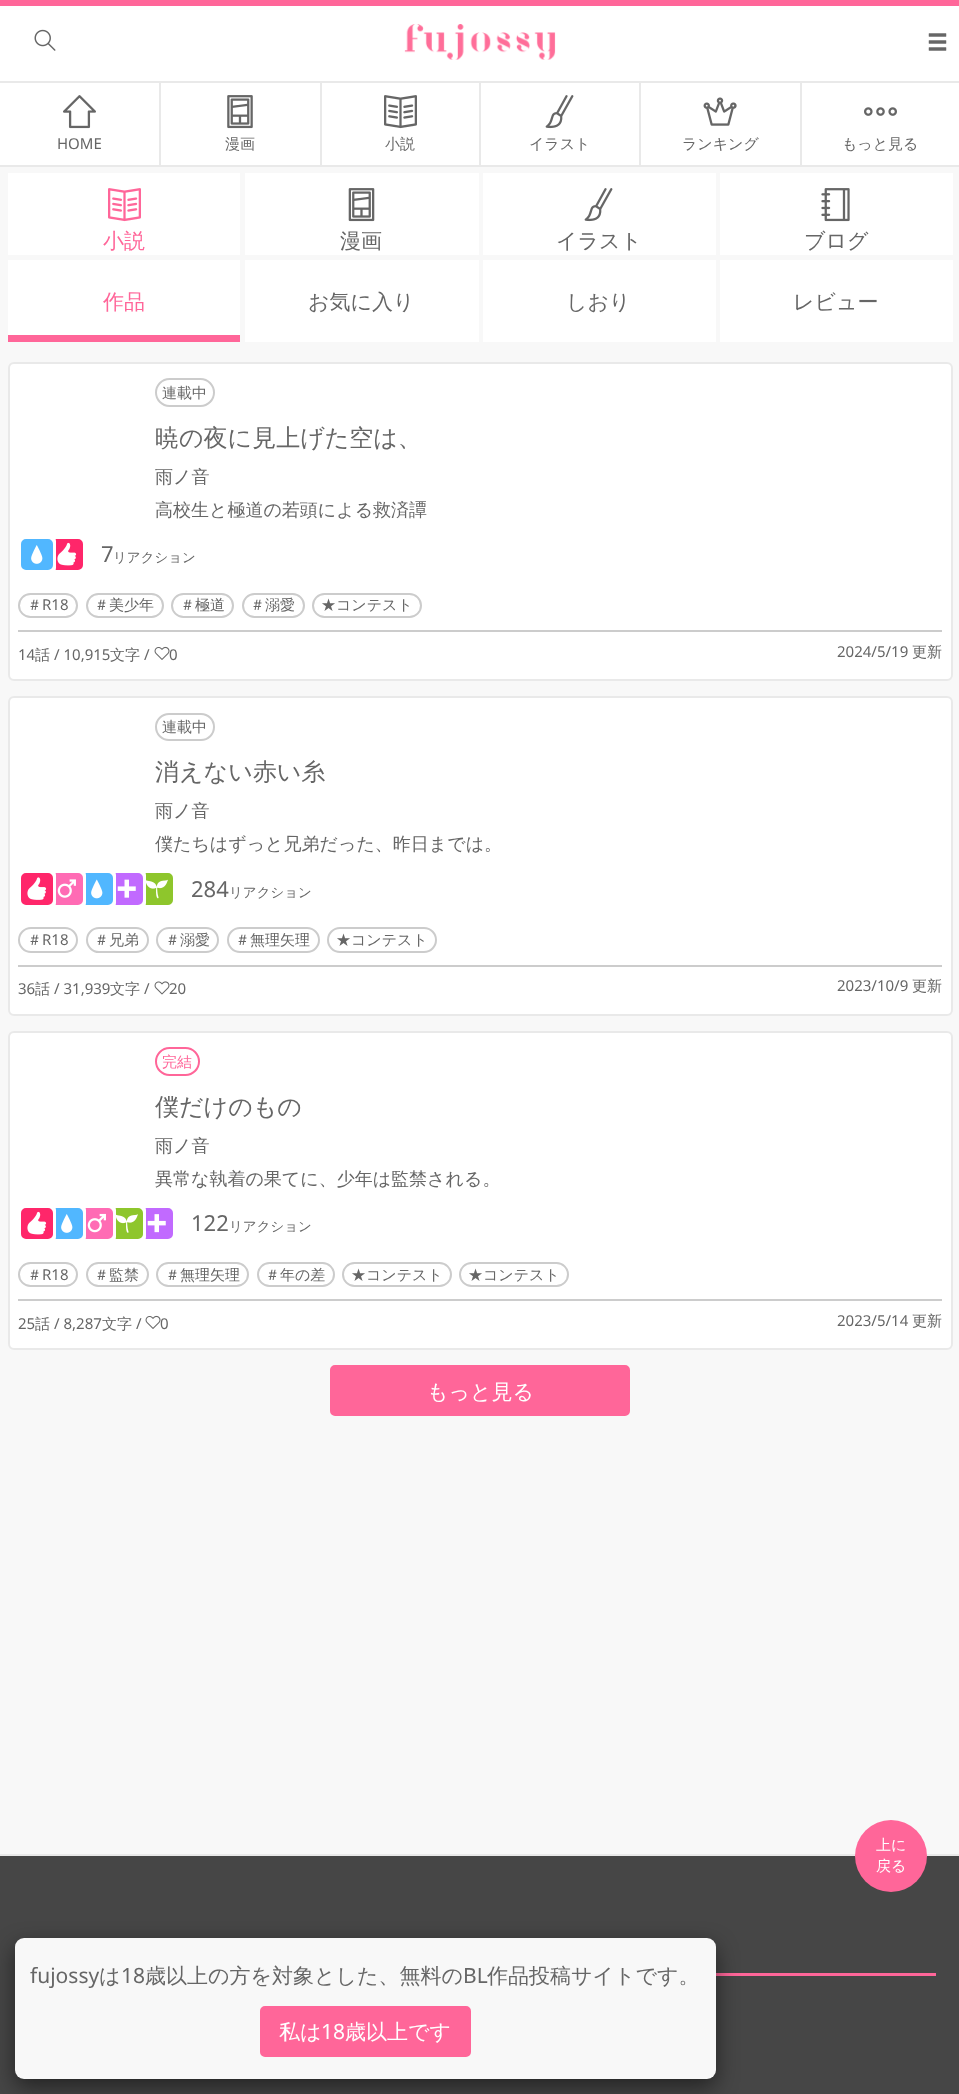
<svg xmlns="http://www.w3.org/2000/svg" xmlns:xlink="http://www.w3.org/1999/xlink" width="959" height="2094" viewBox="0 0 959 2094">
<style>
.cls-1{font:15px Noto Sans;fill:#666666}
.cls-2{font:500 15px WenQuanYi Zen Hei;fill:#666666}
.cls-3{font:500 21px WenQuanYi Zen Hei;fill:#ff6699}
.cls-4{font:500 21px WenQuanYi Zen Hei;fill:#666666}
.cls-5{font:500 24px WenQuanYi Zen Hei;fill:#666666}
.cls-6{font:500 18px WenQuanYi Zen Hei;fill:#666666}
.cls-7{font:22px Noto Sans;fill:#666666}
.cls-8{font:500 13.5px WenQuanYi Zen Hei;fill:#666666}
.cls-9{font:500 15px WenQuanYi Zen Hei;fill:#ff6699}
.cls-10{font:500 21px WenQuanYi Zen Hei;fill:#ffffff}
.cls-11{font:500 15px WenQuanYi Zen Hei;fill:#ffffff}
.cls-12{font:21px Noto Sans;fill:#666666}
.cls-13{font:21px Noto Sans;fill:#ffffff}
</style>
<rect width="100%" height="100%" fill="#f8f8f8"/>
<rect fill="#ff6699" x="0" y="0" width="959" height="6"/>
<rect fill="#ffffff" x="0" y="6" width="959" height="75"/>
<image xlink:href="image0.png" x="34" y="29" width="22" height="22"/>
<image xlink:href="image1.png" x="404" y="24" width="152" height="36"/>
<image xlink:href="image2.png" x="928" y="33" width="19" height="18"/>
<rect fill="#ffffff" x="0" y="83" width="959" height="82"/>
<rect fill="#e9e9e9" x="0" y="81" width="959" height="2"/>
<rect fill="#e9e9e9" x="0" y="165" width="959" height="2"/>
<image xlink:href="image3.png" x="63" y="95" width="33" height="34"/>
<rect fill="#e9e9e9" x="159" y="83" width="2" height="84"/>
<image xlink:href="image4.png" x="227" y="95" width="26" height="34"/>
<rect fill="#e9e9e9" x="320" y="83" width="2" height="84"/>
<image xlink:href="image5.png" x="384" y="95" width="33" height="34"/>
<rect fill="#e9e9e9" x="479" y="83" width="2" height="84"/>
<image xlink:href="image6.png" x="545" y="95" width="29" height="34"/>
<rect fill="#e9e9e9" x="639" y="83" width="2" height="84"/>
<image xlink:href="image7.png" x="703" y="97" width="34" height="29"/>
<rect fill="#e9e9e9" x="800" y="83" width="2" height="84"/>
<image xlink:href="image8.png" x="864" y="107" width="33" height="9"/>
<rect fill="#ffffff" x="8" y="173" width="232" height="82"/>
<image xlink:href="image9.png" x="108" y="188" width="33" height="34"/>
<rect fill="#ffffff" x="245" y="173" width="234" height="82"/>
<image xlink:href="image10.png" x="348" y="188" width="27" height="34"/>
<rect fill="#ffffff" x="483" y="173" width="233" height="82"/>
<image xlink:href="image6.png" x="584" y="188" width="29" height="34"/>
<rect fill="#ffffff" x="720" y="173" width="233" height="82"/>
<image xlink:href="image11.png" x="821" y="188" width="29" height="34"/>
<rect fill="#ffffff" x="8" y="260" width="232" height="75"/>
<rect fill="#ff6699" x="8" y="335" width="232" height="7"/>
<rect fill="#ffffff" x="245" y="260" width="234" height="82"/>
<rect fill="#ffffff" x="483" y="260" width="233" height="82"/>
<rect fill="#ffffff" x="720" y="260" width="233" height="82"/>
<rect fill="#ffffff" stroke="#e9e9e9" stroke-width="2" x="9" y="363" width="943" height="317" rx="5"/>
<rect fill="none" stroke="#cccccc" stroke-width="2" x="156" y="379" width="58" height="27" rx="13.5"/>
<rect fill="#ff266a" stroke="#ff266a" stroke-width="2" x="52" y="540" width="30" height="29" rx="4"/>
<rect fill="#ffffff" stroke="#ffffff" stroke-width="3" x="19.5" y="537.5" width="35" height="34" rx="3.5"/>
<rect fill="#51b7ff" stroke="#51b7ff" stroke-width="2" x="22" y="540" width="30" height="29" rx="4"/>
<image xlink:href="image12.png" x="31" y="545" width="12" height="19"/>
<image xlink:href="image13.png" x="57" y="542" width="20" height="24"/>
<rect fill="none" stroke="#cccccc" stroke-width="2" x="19" y="594" width="58" height="23" rx="11.5"/>
<rect fill="none" stroke="#cccccc" stroke-width="2" x="87" y="594" width="76" height="23" rx="11.5"/>
<rect fill="none" stroke="#cccccc" stroke-width="2" x="172" y="594" width="61" height="23" rx="11.5"/>
<rect fill="none" stroke="#cccccc" stroke-width="2" x="243" y="594" width="61" height="23" rx="11.5"/>
<rect fill="none" stroke="#cccccc" stroke-width="2" x="313" y="594" width="108" height="23" rx="11.5"/>
<rect fill="#cccccc" x="18" y="630" width="924" height="2"/>
<image xlink:href="image14.png" x="154" y="646" width="16" height="14"/>
<rect fill="#ffffff" stroke="#e9e9e9" stroke-width="2" x="9" y="697" width="943" height="318" rx="5"/>
<rect fill="none" stroke="#cccccc" stroke-width="2" x="156" y="714" width="58" height="26" rx="13"/>
<rect fill="#8ec62c" stroke="#8ec62c" stroke-width="2" x="142" y="874" width="30" height="30" rx="4"/>
<rect fill="#ffffff" stroke="#ffffff" stroke-width="3" x="109.5" y="871.5" width="35" height="35" rx="3.5"/>
<rect fill="#c16aff" stroke="#c16aff" stroke-width="2" x="112" y="874" width="30" height="30" rx="4"/>
<rect fill="#ffffff" stroke="#ffffff" stroke-width="3" x="79.5" y="871.5" width="35" height="35" rx="3.5"/>
<rect fill="#51b7ff" stroke="#51b7ff" stroke-width="2" x="82" y="874" width="30" height="30" rx="4"/>
<rect fill="#ffffff" stroke="#ffffff" stroke-width="3" x="49.5" y="871.5" width="35" height="35" rx="3.5"/>
<rect fill="#ff6bb4" stroke="#ff6bb4" stroke-width="2" x="52" y="874" width="30" height="30" rx="4"/>
<rect fill="#ffffff" stroke="#ffffff" stroke-width="3" x="19.5" y="871.5" width="35" height="35" rx="3.5"/>
<rect fill="#ff266a" stroke="#ff266a" stroke-width="2" x="22" y="874" width="30" height="30" rx="4"/>
<image xlink:href="image15.png" x="27" y="877" width="20" height="23"/>
<image xlink:href="image16.png" x="57" y="879" width="19" height="19"/>
<image xlink:href="image17.png" x="91" y="879" width="12" height="20"/>
<image xlink:href="image18.png" x="117" y="879" width="19" height="19"/>
<image xlink:href="image19.png" x="146" y="879" width="22" height="20"/>
<rect fill="none" stroke="#cccccc" stroke-width="2" x="19" y="928" width="58" height="24" rx="12"/>
<rect fill="none" stroke="#cccccc" stroke-width="2" x="87" y="928" width="61" height="24" rx="12"/>
<rect fill="none" stroke="#cccccc" stroke-width="2" x="157" y="928" width="61" height="24" rx="12"/>
<rect fill="none" stroke="#cccccc" stroke-width="2" x="228" y="928" width="91" height="24" rx="12"/>
<rect fill="none" stroke="#cccccc" stroke-width="2" x="328" y="928" width="108" height="24" rx="12"/>
<rect fill="#cccccc" x="18" y="965" width="924" height="2"/>
<image xlink:href="image20.png" x="154" y="981" width="16" height="14"/>
<rect fill="#ffffff" stroke="#e9e9e9" stroke-width="2" x="9" y="1032" width="943" height="317" rx="5"/>
<rect fill="none" stroke="#ff6699" stroke-width="2" x="156" y="1048" width="43" height="27" rx="13.5"/>
<rect fill="#c16aff" stroke="#c16aff" stroke-width="2" x="142" y="1209" width="30" height="29" rx="4"/>
<rect fill="#ffffff" stroke="#ffffff" stroke-width="3" x="109.5" y="1206.5" width="35" height="34" rx="3.5"/>
<rect fill="#8ec62c" stroke="#8ec62c" stroke-width="2" x="112" y="1209" width="30" height="29" rx="4"/>
<rect fill="#ffffff" stroke="#ffffff" stroke-width="3" x="79.5" y="1206.5" width="35" height="34" rx="3.5"/>
<rect fill="#ff6bb4" stroke="#ff6bb4" stroke-width="2" x="82" y="1209" width="30" height="29" rx="4"/>
<rect fill="#ffffff" stroke="#ffffff" stroke-width="3" x="49.5" y="1206.5" width="35" height="34" rx="3.5"/>
<rect fill="#51b7ff" stroke="#51b7ff" stroke-width="2" x="52" y="1209" width="30" height="29" rx="4"/>
<rect fill="#ffffff" stroke="#ffffff" stroke-width="3" x="19.5" y="1206.5" width="35" height="34" rx="3.5"/>
<rect fill="#ff266a" stroke="#ff266a" stroke-width="2" x="22" y="1209" width="30" height="29" rx="4"/>
<image xlink:href="image13.png" x="27" y="1211" width="20" height="24"/>
<image xlink:href="image12.png" x="61" y="1214" width="12" height="19"/>
<image xlink:href="image21.png" x="87" y="1213" width="19" height="20"/>
<image xlink:href="image22.png" x="116" y="1214" width="22" height="19"/>
<image xlink:href="image23.png" x="147" y="1214" width="19" height="19"/>
<rect fill="none" stroke="#cccccc" stroke-width="2" x="19" y="1263" width="58" height="23" rx="11.5"/>
<rect fill="none" stroke="#cccccc" stroke-width="2" x="87" y="1263" width="61" height="23" rx="11.5"/>
<rect fill="none" stroke="#cccccc" stroke-width="2" x="157" y="1263" width="91" height="23" rx="11.5"/>
<rect fill="none" stroke="#cccccc" stroke-width="2" x="258" y="1263" width="76" height="23" rx="11.5"/>
<rect fill="none" stroke="#cccccc" stroke-width="2" x="343" y="1263" width="108" height="23" rx="11.5"/>
<rect fill="none" stroke="#cccccc" stroke-width="2" x="460" y="1263" width="108" height="23" rx="11.5"/>
<rect fill="#cccccc" x="18" y="1299" width="924" height="2"/>
<image xlink:href="image14.png" x="145" y="1315" width="16" height="14"/>
<rect fill="#ff6699" stroke="#ff6699" stroke-width="2" x="331" y="1366" width="298" height="49" rx="4"/>
<rect fill="#464646" x="0" y="1856" width="959" height="238"/>
<rect fill="#e9e9e9" x="0" y="1854" width="959" height="2"/>
<circle fill="#ff6699" cx="891" cy="1856" r="36"/>
<rect fill="#ff6699" x="716" y="1973" width="220" height="3"/>
<rect fill="#000000" fill-opacity="0.5" filter="blur(11px)" x="15" y="1946" width="701" height="141" rx="9"/>
<rect fill="#f8f8f8" x="15" y="1938" width="701" height="141" rx="9"/>
<rect fill="#ff6699" stroke="#ff6699" stroke-width="2" x="261" y="2007" width="209" height="49" rx="4"/>
<text class="cls-1" x="57" y="149">HOME</text>
<text class="cls-2" x="225" y="149">漫画</text>
<text class="cls-2" x="385" y="149">小説</text>
<text class="cls-2" x="529" y="149">イラスト</text>
<text class="cls-2" x="682" y="149">ランキング</text>
<text class="cls-2" x="842" y="149">もっと見る</text>
<text class="cls-3" x="103" y="248">小説</text>
<text class="cls-4" x="340" y="248">漫画</text>
<text class="cls-4" x="556" y="248">イラスト</text>
<text class="cls-4" x="804" y="248">ブログ</text>
<text class="cls-3" x="103" y="309">作品</text>
<text class="cls-4" x="308" y="309">お気に入り</text>
<text class="cls-4" x="566" y="309">しおり</text>
<text class="cls-4" x="793" y="309">レビュー</text>
<text class="cls-2" x="162" y="398">連載中</text>
<text class="cls-5" x="155" y="446">暁の夜に見上げた空は、</text>
<text class="cls-6"><tspan x="155" y="483">雨ノ音</tspan><tspan x="155" y="516">高校生と極道の若頭による救済譚</tspan></text>
<text class="cls-7" x="101" y="562">7</text>
<text class="cls-8" x="113" y="562">リアクション</text>
<text class="cls-2" x="27" y="610">＃</text>
<text class="cls-1" x="42" y="610">R18</text>
<text class="cls-2" x="94" y="610">＃美少年</text>
<text class="cls-2" x="180" y="610">＃極道</text>
<text class="cls-2" x="250" y="610">＃溺愛</text>
<text class="cls-2" x="321" y="610">★コンテスト</text>
<text class="cls-1" x="18" y="660">14</text>
<text class="cls-2" x="35" y="660">話</text>
<text class="cls-1" x="54" y="660">/ 10,915</text>
<text class="cls-2" x="110" y="660">文字</text>
<text class="cls-1" x="144" y="660">/</text>
<text class="cls-1" x="169" y="660">0</text>
<text class="cls-1" x="837" y="657">2024/5/19</text>
<text class="cls-2" x="912" y="657">更新</text>
<text class="cls-2" x="162" y="732">連載中</text>
<text class="cls-5" x="155" y="780">消えない赤い糸</text>
<text class="cls-6"><tspan x="155" y="817">雨ノ音</tspan><tspan x="155" y="850">僕たちはずっと兄弟だった、昨日までは。</tspan></text>
<text class="cls-7" x="191" y="897">284</text>
<text class="cls-8" x="229" y="897">リアクション</text>
<text class="cls-2" x="27" y="945">＃</text>
<text class="cls-1" x="42" y="945">R18</text>
<text class="cls-2" x="94" y="945">＃兄弟</text>
<text class="cls-2" x="165" y="945">＃溺愛</text>
<text class="cls-2" x="235" y="945">＃無理矢理</text>
<text class="cls-2" x="336" y="945">★コンテスト</text>
<text class="cls-1" x="18" y="994">36</text>
<text class="cls-2" x="35" y="994">話</text>
<text class="cls-1" x="54" y="994">/ 31,939</text>
<text class="cls-2" x="110" y="994">文字</text>
<text class="cls-1" x="144" y="994">/</text>
<text class="cls-1" x="169" y="994">20</text>
<text class="cls-1" x="837" y="991">2023/10/9</text>
<text class="cls-2" x="912" y="991">更新</text>
<text class="cls-9" x="162" y="1067">完結</text>
<text class="cls-5" x="155" y="1115">僕だけのもの</text>
<text class="cls-6"><tspan x="155" y="1152">雨ノ音</tspan><tspan x="155" y="1185">異常な執着の果てに、少年は監禁される。</tspan></text>
<text class="cls-7" x="191" y="1231">122</text>
<text class="cls-8" x="229" y="1231">リアクション</text>
<text class="cls-2" x="27" y="1280">＃</text>
<text class="cls-1" x="42" y="1280">R18</text>
<text class="cls-2" x="94" y="1280">＃監禁</text>
<text class="cls-2" x="165" y="1280">＃無理矢理</text>
<text class="cls-2" x="265" y="1280">＃年の差</text>
<text class="cls-2" x="351" y="1280">★コンテスト</text>
<text class="cls-2" x="468" y="1280">★コンテスト</text>
<text class="cls-1" x="18" y="1329">25</text>
<text class="cls-2" x="35" y="1329">話</text>
<text class="cls-1" x="54" y="1329">/ 8,287</text>
<text class="cls-2" x="102" y="1329">文字</text>
<text class="cls-1" x="136" y="1329">/</text>
<text class="cls-1" x="160" y="1329">0</text>
<text class="cls-1" x="837" y="1326">2023/5/14</text>
<text class="cls-2" x="912" y="1326">更新</text>
<text class="cls-10" x="427" y="1399">もっと見る</text>
<text class="cls-11"><tspan x="876" y="1850">上に</tspan><tspan x="876" y="1871">戻る</tspan></text>
<text class="cls-12" x="30" y="1983">fujossy</text>
<text class="cls-4" x="99" y="1983">は</text>
<text class="cls-12" x="121" y="1983">18</text>
<text class="cls-4" x="145" y="1983">歳以上の方を対象とした、無料の</text>
<text class="cls-12" x="463" y="1983">BL</text>
<text class="cls-4" x="487" y="1983">作品投稿サイトです。</text>
<text class="cls-10" x="279" y="2039">私は</text>
<text class="cls-13" x="321" y="2039">18</text>
<text class="cls-10" x="345" y="2039">歳以上です</text>
</svg>
